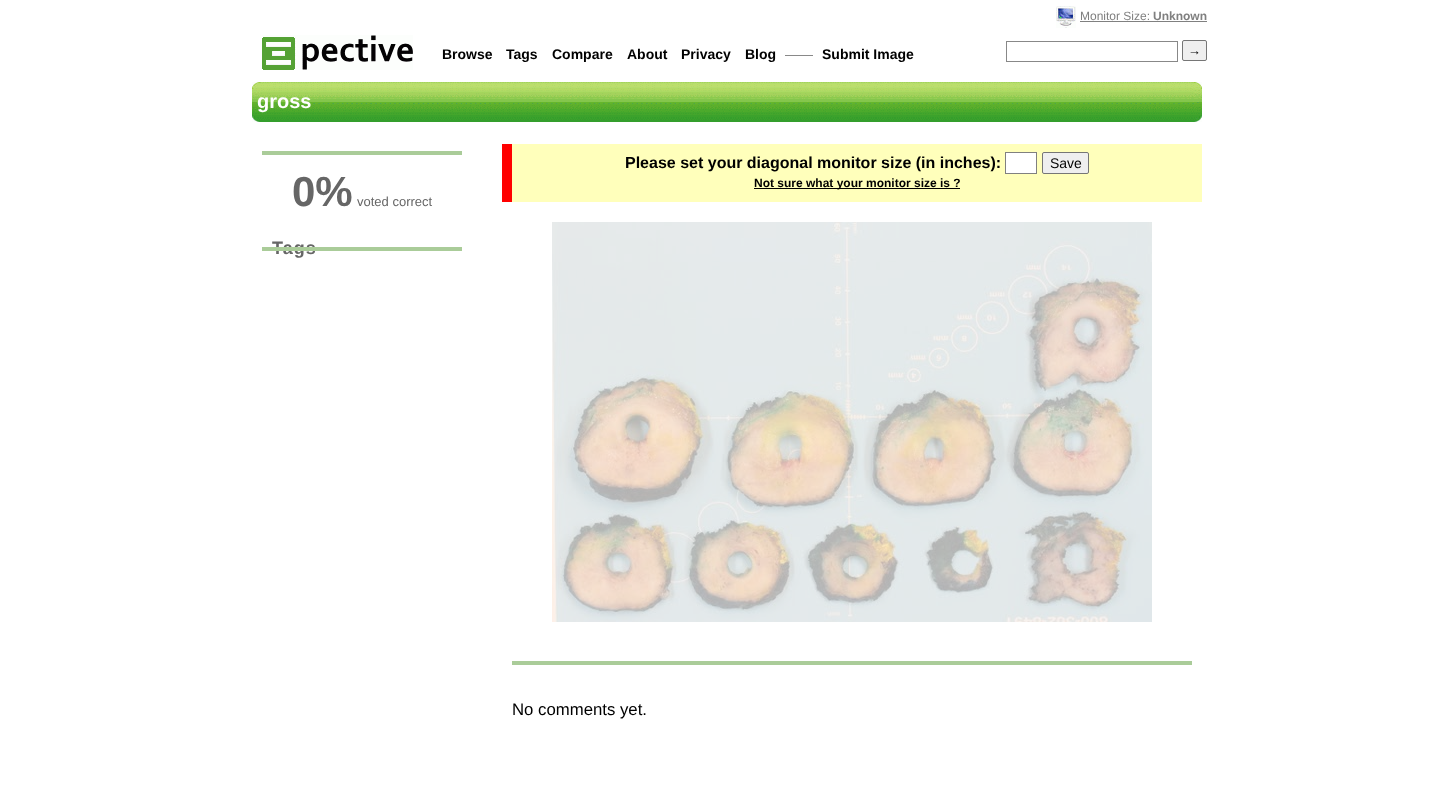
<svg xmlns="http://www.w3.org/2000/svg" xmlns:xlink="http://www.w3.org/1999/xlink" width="1454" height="805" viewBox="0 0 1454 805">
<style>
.cls-1{font:12px Liberation Sans;fill:#808080}
.cls-2{font:bold 12px Liberation Sans;fill:#808080}
.cls-3{font:bold 14px Liberation Sans;fill:#000000}
.cls-4{font:14px Liberation Sans;fill:#808080}
.cls-5{font:bold 13px Liberation Sans;fill:#000000}
.cls-6{font:bold 20px Liberation Sans;fill:#ffffff}
.cls-7{font:bold 42px Liberation Sans;fill:#666666}
.cls-8{font:13px Liberation Sans;fill:#666666}
.cls-9{font:bold 18px Liberation Sans;letter-spacing:1px;fill:#666666}
.cls-10{font:bold 16px Liberation Sans;fill:#000000}
.cls-11{font:14px Liberation Sans;fill:#000000}
.cls-12{font:bold 12px Liberation Sans;fill:#000000}
.cls-13{font:16.75px Liberation Sans;fill:#000000}
</style>
<rect width="100%" height="100%" fill="#ffffff"/>
<image xlink:href="image0.png" x="1056" y="6" width="20" height="22"/>
<rect fill="#808080" x="1080" y="21" width="127" height="1"/>
<image xlink:href="image1.png" x="262" y="35" width="151" height="35"/>
<rect fill="none" stroke="#888888" x="1006.5" y="41.5" width="171" height="20"/>
<rect fill="#efefef" stroke="#767676" x="1182.5" y="40.5" width="24" height="20" rx="1.5"/>
<image xlink:href="image2.png" x="252" y="82" width="950" height="40"/>
<rect fill="#aacc99" x="262" y="151" width="200" height="4"/>
<rect fill="#ff0000" x="502" y="144" width="10" height="58"/>
<rect fill="#ffffbb" x="512" y="144" width="690" height="58"/>
<rect fill="#ffffff" stroke="#808080" x="1005.5" y="152.5" width="31" height="21"/>
<rect fill="#efefef" stroke="#767676" x="1042.5" y="152.5" width="46" height="21" rx="1.5"/>
<rect fill="#000000" x="754" y="188" width="206" height="1"/>
<image xlink:href="image3.png" x="552" y="222" width="600" height="400"/>
<rect fill="#aacc99" x="512" y="661" width="680" height="4"/>
<text class="cls-1" x="1080" y="20">Monitor Size:</text>
<text class="cls-2" x="1153" y="20">Unknown</text>
<text class="cls-3" x="442" y="59">Browse</text>
<text class="cls-3" x="506" y="59">Tags</text>
<text class="cls-3" x="552" y="59">Compare</text>
<text class="cls-3" x="627" y="59">About</text>
<text class="cls-3" x="681" y="59">Privacy</text>
<text class="cls-3" x="745" y="59">Blog</text>
<text class="cls-4" x="785" y="59">——</text>
<text class="cls-3" x="822" y="59">Submit Image</text>
<text class="cls-5" x="1188" y="55">→</text>
<text class="cls-6" x="257" y="108">gross</text>
<text class="cls-7" x="292" y="206">0%</text>
<text class="cls-8" x="357" y="206">voted correct</text>
<text class="cls-9" x="272" y="254">Tags</text>
<rect fill="#aacc99" x="262" y="247" width="200" height="4"/>
<text class="cls-10" x="625" y="168">Please set your diagonal monitor size (in inches):</text>
<text class="cls-11" x="1050" y="168">Save</text>
<text class="cls-12" x="754" y="187">Not sure what your monitor size is ?</text>
<text class="cls-13" x="512" y="715">No comments yet.</text>
</svg>
